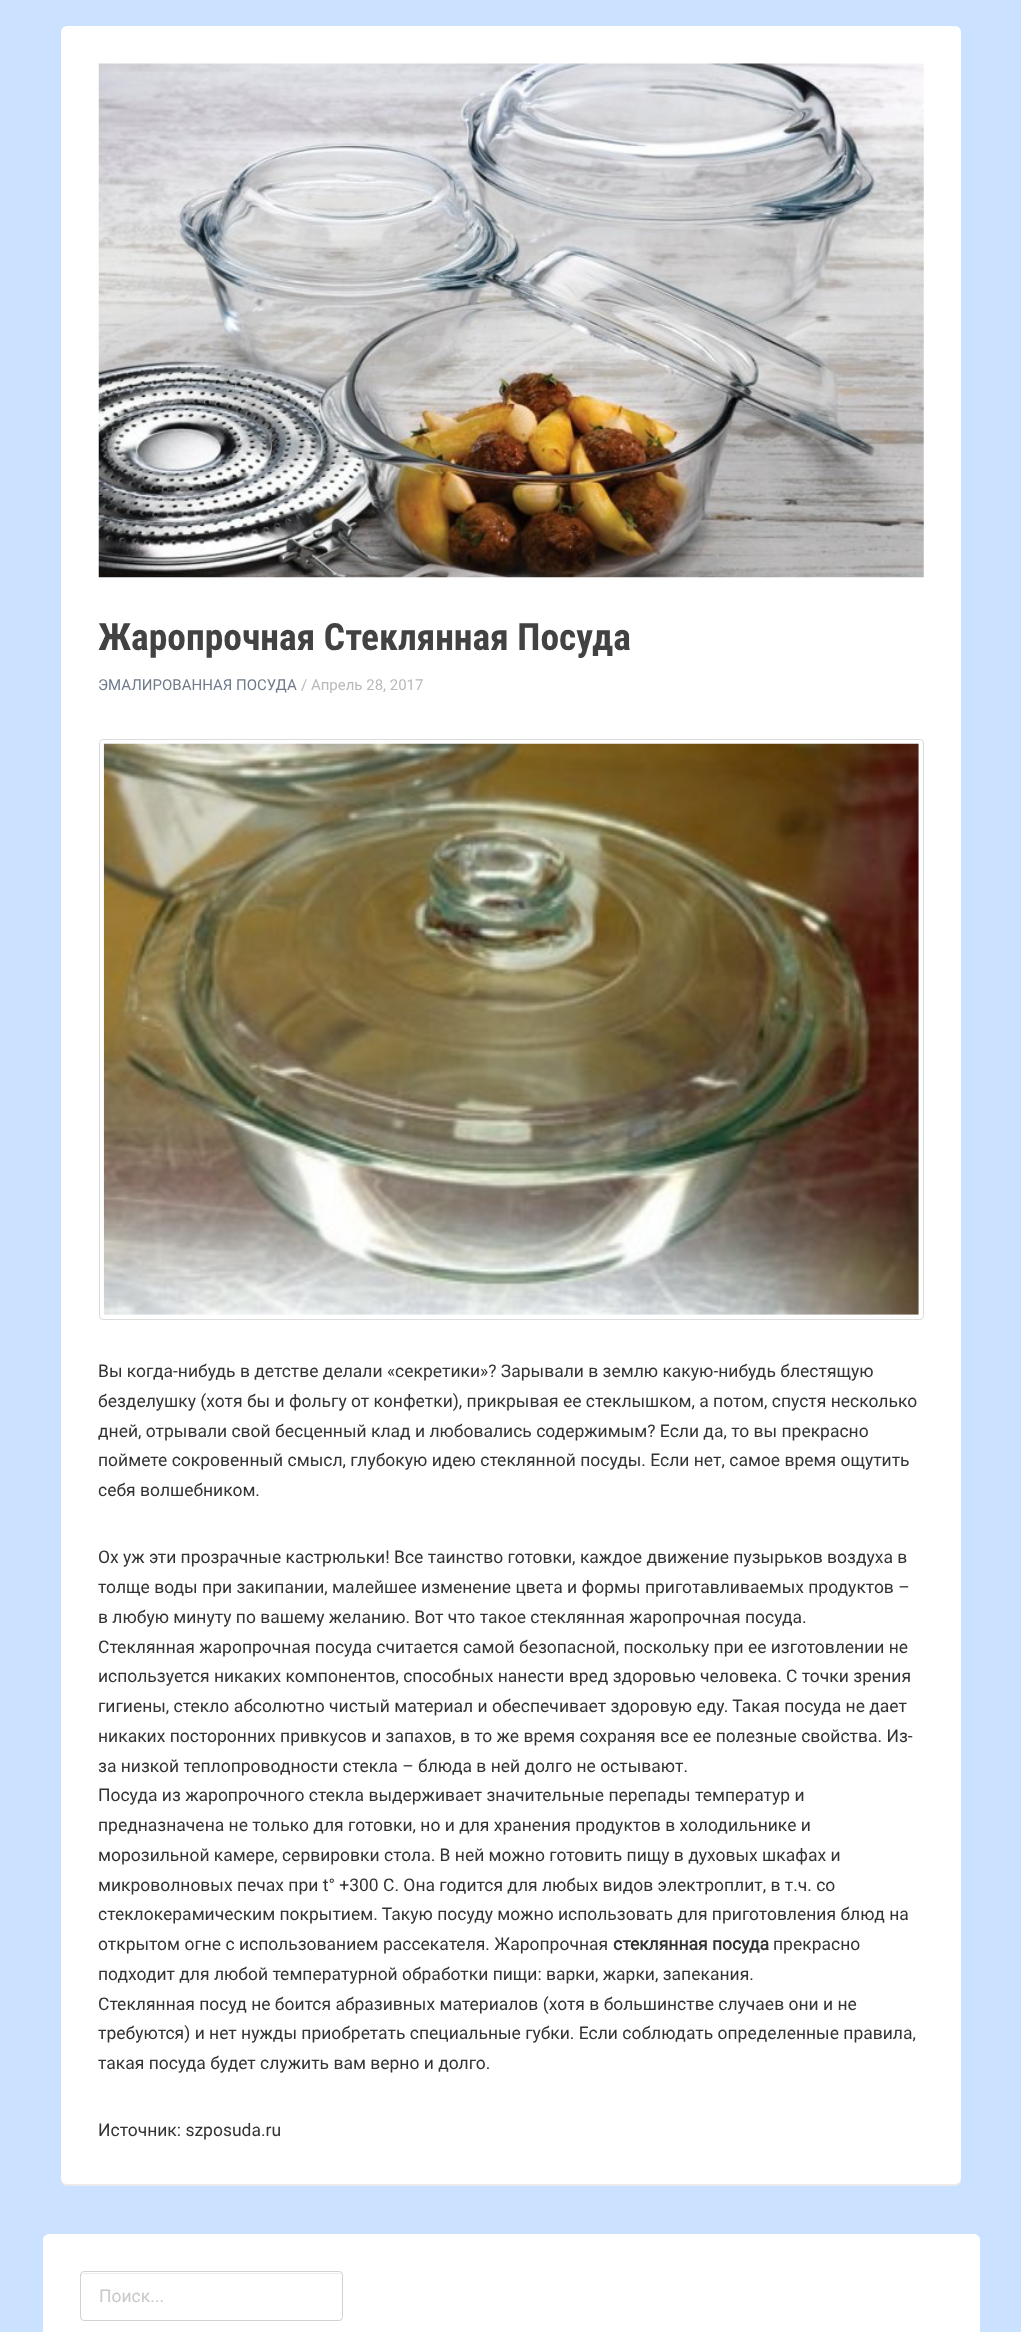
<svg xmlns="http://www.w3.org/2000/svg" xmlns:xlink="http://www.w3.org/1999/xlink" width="1021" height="2332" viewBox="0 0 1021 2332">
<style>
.cls-1{font:bold 37.5px Roboto Condensed;fill:#424242}
.cls-2{font:15px Roboto;fill:#6e7b8b}
.cls-3{font:15px Roboto;fill:#b9b9b9}
.cls-4{font:17.5px Roboto;fill:#333333}
.cls-5{font:bold 17.5px Roboto;fill:#333333}
.cls-6{font:17.5px Roboto;fill:#c8c8c8}
</style>
<rect width="100%" height="100%" fill="#cae1ff"/>
<rect fill="#ebebeb" filter="blur(0.5px)" x="61" y="29" width="900" height="2157" rx="6"/>
<rect fill="#ffffff" x="61" y="26" width="900" height="2158" rx="6"/>
<image xlink:href="image0.png" x="98" y="63" width="826" height="515"/>
<rect fill="none" stroke="#dcdcdc" x="99.5" y="739.5" width="824" height="580" rx="3.5"/>
<image xlink:href="image1.png" x="103" y="743" width="816" height="572"/>
<rect fill="#ebebeb" filter="blur(0.5px)" x="43" y="2236" width="937" height="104" rx="6"/>
<rect fill="#ffffff" x="43" y="2234" width="937" height="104" rx="6"/>
<path fill="#ececec" d="M84 2274H339C340 2274 341 2275 341 2276C341 2274 340 2273 338 2273H84L81 2274V2276C81 2275 82 2274 84 2274Z"/>
<rect fill="none" stroke="#d3d1d1" x="80.5" y="2271.5" width="262" height="49" rx="3.5"/>
<text class="cls-1" x="98" y="650">Жаропрочная Стеклянная Посуда</text>
<text class="cls-2" x="98" y="690">ЭМАЛИРОВАННАЯ ПОСУДА</text>
<text class="cls-3" x="301" y="690">/ Апрель 28, 2017</text>
<text class="cls-4"><tspan x="98" y="1377">Вы когда-нибудь в детстве делали «секретики»? Зарывали в землю какую-нибудь блестящую</tspan><tspan x="98" y="1407">безделушку (хотя бы и фольгу от конфетки), прикрывая ее стеклышком, а потом, спустя несколько</tspan><tspan x="98" y="1437">дней, отрывали свой бесценный клад и любовались содержимым? Если да, то вы прекрасно</tspan><tspan x="98" y="1466">поймете сокровенный смысл, глубокую идею стеклянной посуды. Если нет, самое время ощутить</tspan><tspan x="98" y="1496">себя волшебником.</tspan></text>
<text class="cls-4"><tspan x="98" y="1563">Ох уж эти прозрачные кастрюльки! Все таинство готовки, каждое движение пузырьков воздуха в</tspan><tspan x="98" y="1593">толще воды при закипании, малейшее изменение цвета и формы приготавливаемых продуктов –</tspan><tspan x="98" y="1623">в любую минуту по вашему желанию. Вот что такое стеклянная жаропрочная посуда.</tspan><tspan x="98" y="1653">Стеклянная жаропрочная посуда считается самой безопасной, поскольку при ее изготовлении не</tspan><tspan x="98" y="1682">используется никаких компонентов, способных нанести вред здоровью человека. С точки зрения</tspan><tspan x="98" y="1712">гигиены, стекло абсолютно чистый материал и обеспечивает здоровую еду. Такая посуда не дает</tspan><tspan x="98" y="1742">никаких посторонних привкусов и запахов, в то же время сохраняя все ее полезные свойства. Из-</tspan><tspan x="98" y="1772">за низкой теплопроводности стекла – блюда в ней долго не остывают.</tspan><tspan x="98" y="1801">Посуда из жаропрочного стекла выдерживает значительные перепады температур и</tspan><tspan x="98" y="1831">предназначена не только для готовки, но и для хранения продуктов в холодильнике и</tspan><tspan x="98" y="1861">морозильной камере, сервировки стола. В ней можно готовить пищу в духовых шкафах и</tspan><tspan x="98" y="1891">микроволновых печах при t° +300 С. Она годится для любых видов электроплит, в т.ч. со</tspan><tspan x="98" y="1920">стеклокерамическим покрытием. Такую посуду можно использовать для приготовления блюд на</tspan><tspan x="98" y="1950">открытом огне с использованием рассекателя. Жаропрочная</tspan></text>
<text class="cls-5" x="613" y="1950">стеклянная посуда</text>
<text class="cls-4" x="773" y="1950">прекрасно</text>
<text class="cls-4"><tspan x="98" y="1980">подходит для любой температурной обработки пищи: варки, жарки, запекания.</tspan><tspan x="98" y="2010">Стеклянная посуд не боится абразивных материалов (хотя в большинстве случаев они и не</tspan><tspan x="98" y="2039">требуются) и нет нужды приобретать специальные губки. Если соблюдать определенные правила,</tspan><tspan x="98" y="2069">такая посуда будет служить вам верно и долго.</tspan></text>
<text class="cls-4" x="98" y="2136">Источник: szposuda.ru</text>
<text class="cls-6" x="99" y="2302">Поиск...</text>
</svg>
